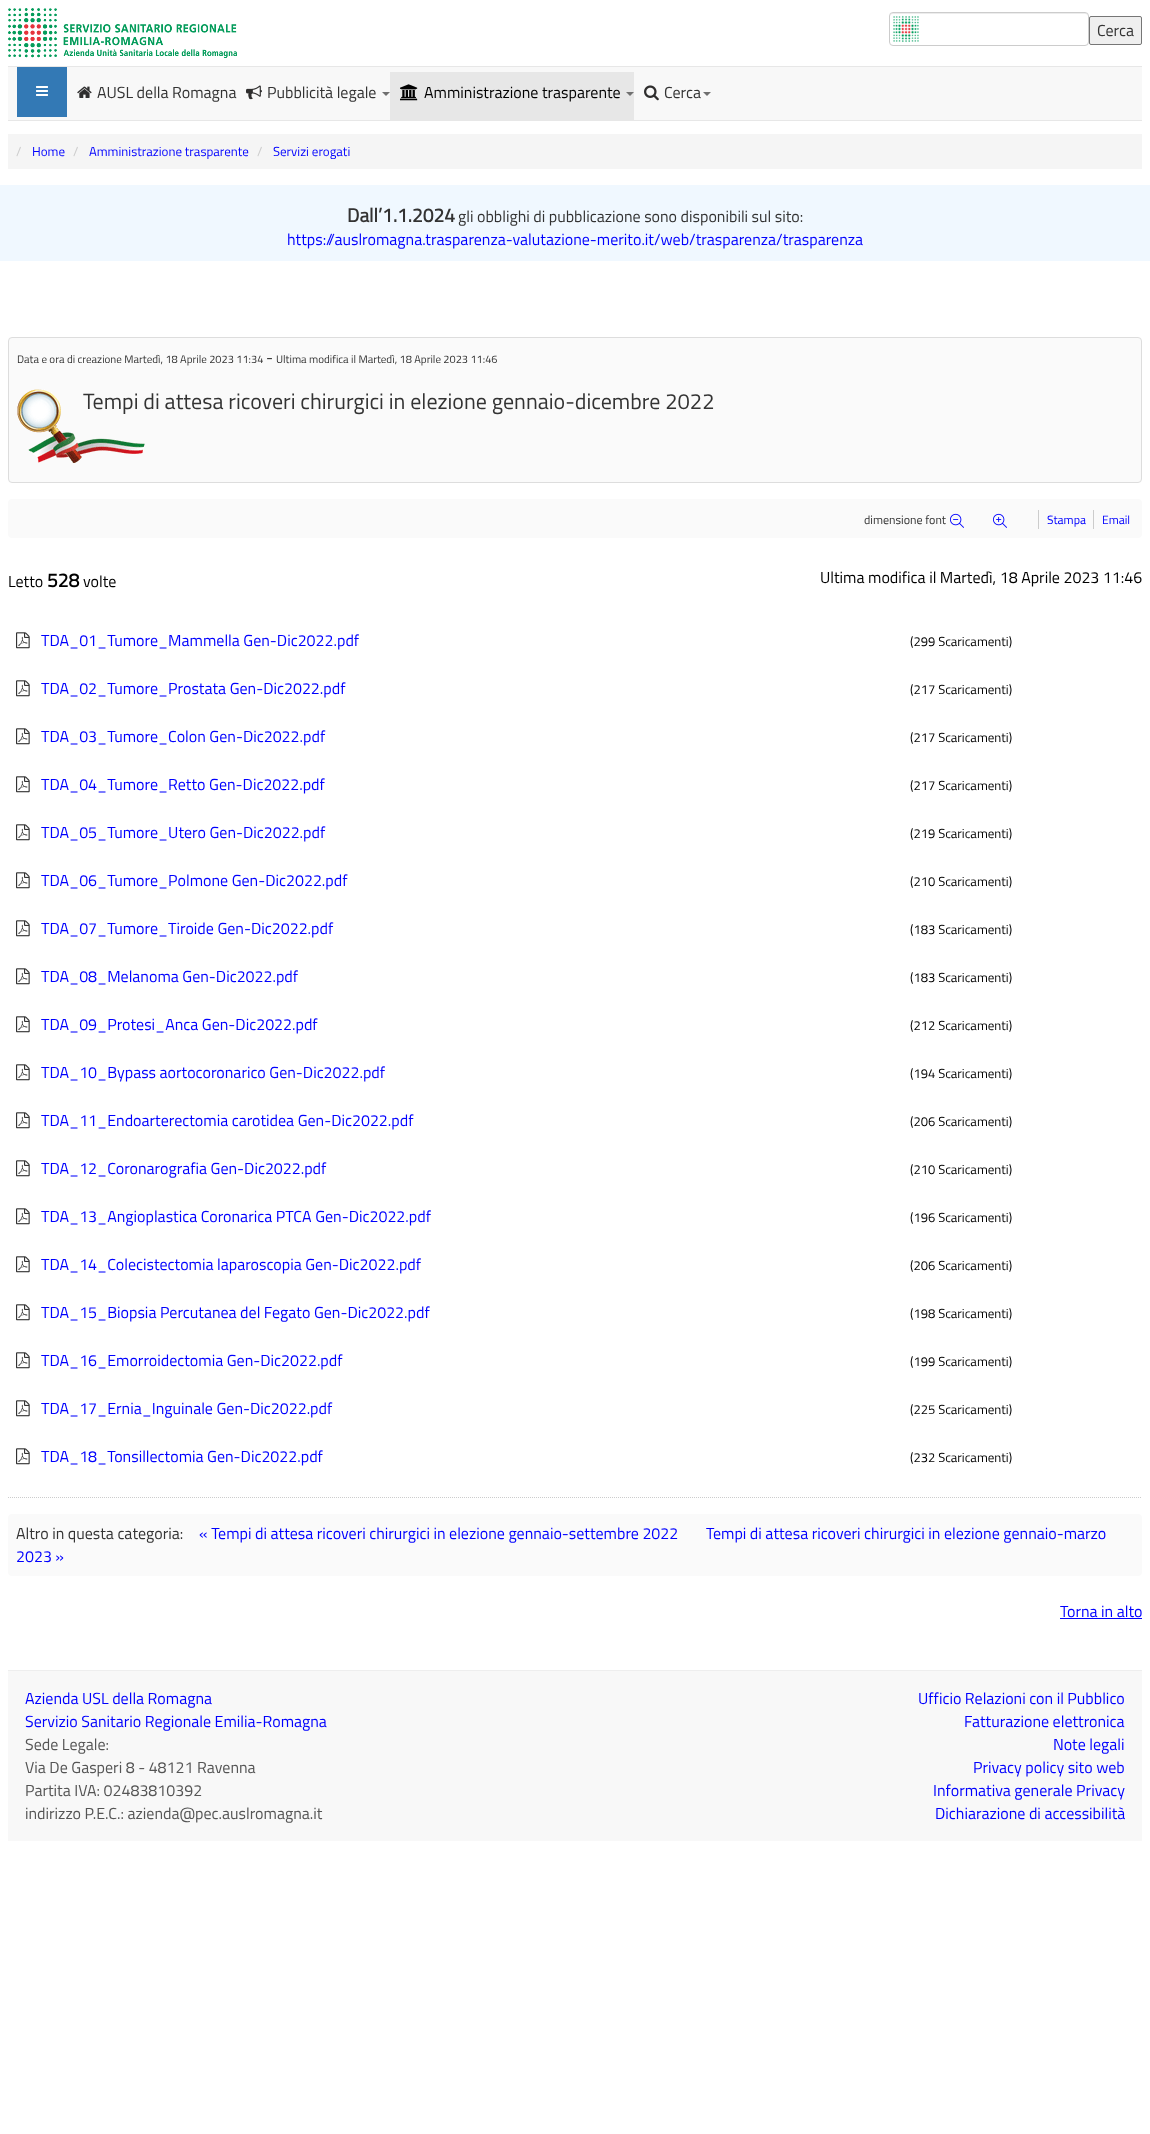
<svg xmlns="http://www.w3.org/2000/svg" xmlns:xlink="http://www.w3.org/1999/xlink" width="1150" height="2134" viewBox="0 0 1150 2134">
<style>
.cls-1{font:16px Titillium Web;fill:#333333}
.cls-2{font:16px Titillium Web;fill:#000000}
.cls-3{font:13px Titillium Web;fill:#cccccc}
.cls-4{font:13px Titillium Web;fill:#0000fe}
.cls-5{font:bold 19.25px Titillium Web;fill:#333333}
.cls-6{font:16px Titillium Web;fill:#0000fe}
.cls-7{font:11px Titillium Web;fill:#333333}
.cls-8{font:22px Titillium Web;fill:#333333}
.cls-9{font:12px Titillium Web;fill:#333333}
.cls-10{font:12px Titillium Web;fill:#0000fe}
.cls-11{font:bold 19.25px Titillium Web;fill:#000000}
.cls-12{font:13px Titillium Web;fill:#000000}
.cls-13{font:16px Titillium Web;fill:#555555}
</style>
<rect width="100%" height="100%" fill="#ffffff"/>
<image xlink:href="image0.png" x="8" y="8" width="229" height="50"/>
<image xlink:href="image1.png" x="893" y="15" width="26" height="28"/>
<path fill="#ececec" d="M893 14H1085C1087 14 1088 15 1088 17C1088 15 1087 13 1085 13H893C891 13 890 15 890 17C890 15 891 14 893 14Z"/>
<rect fill="none" stroke="#cccccc" x="889.5" y="12.5" width="199" height="33" rx="3.5"/>
<rect fill="#efefef" stroke="#767676" x="1089.5" y="16.5" width="52" height="28" rx="1.5"/>
<rect fill="#f8f8f8" x="8" y="67" width="1134" height="53"/>
<rect fill="#e7e7e7" x="8" y="66" width="1134" height="1"/>
<rect fill="#e7e7e7" x="8" y="120" width="1134" height="1"/>
<rect fill="#3379b5" x="17" y="67" width="50" height="50"/>
<image xlink:href="image2.png" x="36" y="86" width="12" height="10"/>
<image xlink:href="image3.png" x="77" y="86" width="15" height="12"/>
<image xlink:href="image4.png" x="246" y="85" width="16" height="15"/>
<path fill="#707070" d="M382 92H390L386 96Z"/>
<rect fill="#e7e7e7" x="390" y="72" width="244" height="48"/>
<image xlink:href="image5.png" x="400" y="84" width="18" height="17"/>
<path fill="#707070" d="M626 92H634L630 96Z"/>
<image xlink:href="image6.png" x="644" y="85" width="15" height="16"/>
<path fill="#707070" d="M703 92H711L707 96Z"/>
<rect fill="#f5f5f5" x="8" y="134" width="1134" height="35"/>
<rect fill="#f0f8ff" x="0" y="185" width="1150" height="76"/>
<rect fill="#fafafa" stroke="#dddddd" x="8.5" y="337.5" width="1133" height="145" rx="3.5"/>
<image xlink:href="image7.png" x="17" y="389" width="128" height="74"/>
<rect fill="#fafafa" x="8" y="499" width="1134" height="39" rx="4"/>
<image xlink:href="image8.png" x="950" y="513" width="14" height="15"/>
<image xlink:href="image9.png" x="993" y="513" width="14" height="15"/>
<rect fill="#cccccc" x="1038" y="510" width="1" height="19"/>
<rect fill="#cccccc" x="1093" y="510" width="1" height="19"/>
<path fill="none" stroke="#cccccc" stroke-dasharray="1 1" d="M8 1497.5H1142"/>
<image xlink:href="image10.png" x="16" y="632" width="14" height="17"/>
<image xlink:href="image10.png" x="16" y="680" width="14" height="17"/>
<image xlink:href="image10.png" x="16" y="728" width="14" height="17"/>
<image xlink:href="image10.png" x="16" y="776" width="14" height="17"/>
<image xlink:href="image10.png" x="16" y="824" width="14" height="17"/>
<image xlink:href="image10.png" x="16" y="872" width="14" height="17"/>
<image xlink:href="image10.png" x="16" y="920" width="14" height="17"/>
<image xlink:href="image10.png" x="16" y="968" width="14" height="17"/>
<image xlink:href="image10.png" x="16" y="1016" width="14" height="17"/>
<image xlink:href="image10.png" x="16" y="1064" width="14" height="17"/>
<image xlink:href="image10.png" x="16" y="1112" width="14" height="17"/>
<image xlink:href="image10.png" x="16" y="1160" width="14" height="17"/>
<image xlink:href="image10.png" x="16" y="1208" width="14" height="17"/>
<image xlink:href="image10.png" x="16" y="1256" width="14" height="17"/>
<image xlink:href="image10.png" x="16" y="1304" width="14" height="17"/>
<image xlink:href="image10.png" x="16" y="1352" width="14" height="17"/>
<image xlink:href="image10.png" x="16" y="1400" width="14" height="17"/>
<image xlink:href="image10.png" x="16" y="1448" width="14" height="17"/>
<rect fill="#fafafa" x="8" y="1514" width="1134" height="62" rx="4"/>
<rect fill="#0000fe" x="1060" y="1618" width="82" height="1"/>
<rect fill="#f8f8f8" x="8" y="1671" width="1134" height="170"/>
<rect fill="#eeeeee" x="8" y="1670" width="1134" height="1"/>
<text class="cls-1" x="1097" y="36">Cerca</text>
<text class="cls-1" x="97" y="98">AUSL della Romagna</text>
<text class="cls-1" x="267" y="98">Pubblicità legale</text>
<text class="cls-2" x="424" y="98">Amministrazione trasparente</text>
<text class="cls-1" x="664" y="98">Cerca</text>
<text class="cls-3" x="16" y="156">/</text>
<text class="cls-4" x="32" y="156">Home</text>
<text class="cls-3" x="73" y="156">/</text>
<text class="cls-4" x="89" y="156">Amministrazione trasparente</text>
<text class="cls-3" x="257" y="156">/</text>
<text class="cls-4" x="273" y="156">Servizi erogati</text>
<text class="cls-5" x="347" y="222">Dall’1.1.2024</text>
<text class="cls-1" x="458" y="222">gli obblighi di pubblicazione sono disponibili sul sito:</text>
<text class="cls-6" x="287" y="245">https://auslromagna.trasparenza-valutazione-merito.it/web/trasparenza/trasparenza</text>
<text class="cls-7" x="17" y="363">Data e ora di creazione Martedì, 18 Aprile 2023 11:34</text>
<text class="cls-1" x="266" y="363">-</text>
<text class="cls-7" x="276" y="363">Ultima modifica il Martedì, 18 Aprile 2023 11:46</text>
<text class="cls-8" x="83" y="409">Tempi di attesa ricoveri chirurgici in elezione gennaio-dicembre 2022</text>
<text class="cls-9" x="864" y="524">dimensione font</text>
<text class="cls-10" x="1047" y="524">Stampa</text>
<text class="cls-10" x="1102" y="524">Email</text>
<text class="cls-2" x="8" y="587">Letto</text>
<text class="cls-11" x="47" y="587">528</text>
<text class="cls-2" x="83" y="587">volte</text>
<text class="cls-2" x="820" y="583">Ultima modifica il Martedì, 18 Aprile 2023 11:46</text>
<text class="cls-6" x="41" y="646">TDA_01_Tumore_Mammella Gen-Dic2022.pdf</text>
<text class="cls-12" x="910" y="646">(299 Scaricamenti)</text>
<text class="cls-6" x="41" y="694">TDA_02_Tumore_Prostata Gen-Dic2022.pdf</text>
<text class="cls-12" x="910" y="694">(217 Scaricamenti)</text>
<text class="cls-6" x="41" y="742">TDA_03_Tumore_Colon Gen-Dic2022.pdf</text>
<text class="cls-12" x="910" y="742">(217 Scaricamenti)</text>
<text class="cls-6" x="41" y="790">TDA_04_Tumore_Retto Gen-Dic2022.pdf</text>
<text class="cls-12" x="910" y="790">(217 Scaricamenti)</text>
<text class="cls-6" x="41" y="838">TDA_05_Tumore_Utero Gen-Dic2022.pdf</text>
<text class="cls-12" x="910" y="838">(219 Scaricamenti)</text>
<text class="cls-6" x="41" y="886">TDA_06_Tumore_Polmone Gen-Dic2022.pdf</text>
<text class="cls-12" x="910" y="886">(210 Scaricamenti)</text>
<text class="cls-6" x="41" y="934">TDA_07_Tumore_Tiroide Gen-Dic2022.pdf</text>
<text class="cls-12" x="910" y="934">(183 Scaricamenti)</text>
<text class="cls-6" x="41" y="982">TDA_08_Melanoma Gen-Dic2022.pdf</text>
<text class="cls-12" x="910" y="982">(183 Scaricamenti)</text>
<text class="cls-6" x="41" y="1030">TDA_09_Protesi_Anca Gen-Dic2022.pdf</text>
<text class="cls-12" x="910" y="1030">(212 Scaricamenti)</text>
<text class="cls-6" x="41" y="1078">TDA_10_Bypass aortocoronarico Gen-Dic2022.pdf</text>
<text class="cls-12" x="910" y="1078">(194 Scaricamenti)</text>
<text class="cls-6" x="41" y="1126">TDA_11_Endoarterectomia carotidea Gen-Dic2022.pdf</text>
<text class="cls-12" x="910" y="1126">(206 Scaricamenti)</text>
<text class="cls-6" x="41" y="1174">TDA_12_Coronarografia Gen-Dic2022.pdf</text>
<text class="cls-12" x="910" y="1174">(210 Scaricamenti)</text>
<text class="cls-6" x="41" y="1222">TDA_13_Angioplastica Coronarica PTCA Gen-Dic2022.pdf</text>
<text class="cls-12" x="910" y="1222">(196 Scaricamenti)</text>
<text class="cls-6" x="41" y="1270">TDA_14_Colecistectomia laparoscopia Gen-Dic2022.pdf</text>
<text class="cls-12" x="910" y="1270">(206 Scaricamenti)</text>
<text class="cls-6" x="41" y="1318">TDA_15_Biopsia Percutanea del Fegato Gen-Dic2022.pdf</text>
<text class="cls-12" x="910" y="1318">(198 Scaricamenti)</text>
<text class="cls-6" x="41" y="1366">TDA_16_Emorroidectomia Gen-Dic2022.pdf</text>
<text class="cls-12" x="910" y="1366">(199 Scaricamenti)</text>
<text class="cls-6" x="41" y="1414">TDA_17_Ernia_Inguinale Gen-Dic2022.pdf</text>
<text class="cls-12" x="910" y="1414">(225 Scaricamenti)</text>
<text class="cls-6" x="41" y="1462">TDA_18_Tonsillectomia Gen-Dic2022.pdf</text>
<text class="cls-12" x="910" y="1462">(232 Scaricamenti)</text>
<text class="cls-1" x="16" y="1539">Altro in questa categoria:</text>
<text class="cls-6" x="199" y="1539">« Tempi di attesa ricoveri chirurgici in elezione gennaio-settembre 2022</text>
<text class="cls-6" x="706" y="1539">Tempi di attesa ricoveri chirurgici in elezione gennaio-marzo</text>
<text class="cls-6" x="16" y="1562">2023 »</text>
<text class="cls-6" x="1060" y="1617">Torna in alto</text>
<text class="cls-6"><tspan x="25" y="1704">Azienda USL della Romagna</tspan><tspan x="25" y="1727">Servizio Sanitario Regionale Emilia-Romagna</tspan></text>
<text class="cls-13"><tspan x="25" y="1750">Sede Legale:</tspan><tspan x="25" y="1773">Via De Gasperi 8 - 48121 Ravenna</tspan><tspan x="25" y="1796">Partita IVA: 02483810392</tspan><tspan x="25" y="1819">indirizzo P.E.C.: azienda@pec.auslromagna.it</tspan></text>
<text class="cls-6" x="918" y="1704">Ufficio Relazioni con il Pubblico</text>
<text class="cls-6" x="964" y="1727">Fatturazione elettronica</text>
<text class="cls-6" x="1053" y="1750">Note legali</text>
<text class="cls-6" x="973" y="1773">Privacy policy sito web</text>
<text class="cls-6" x="933" y="1796">Informativa generale Privacy</text>
<text class="cls-6" x="935" y="1819">Dichiarazione di accessibilità</text>
</svg>
